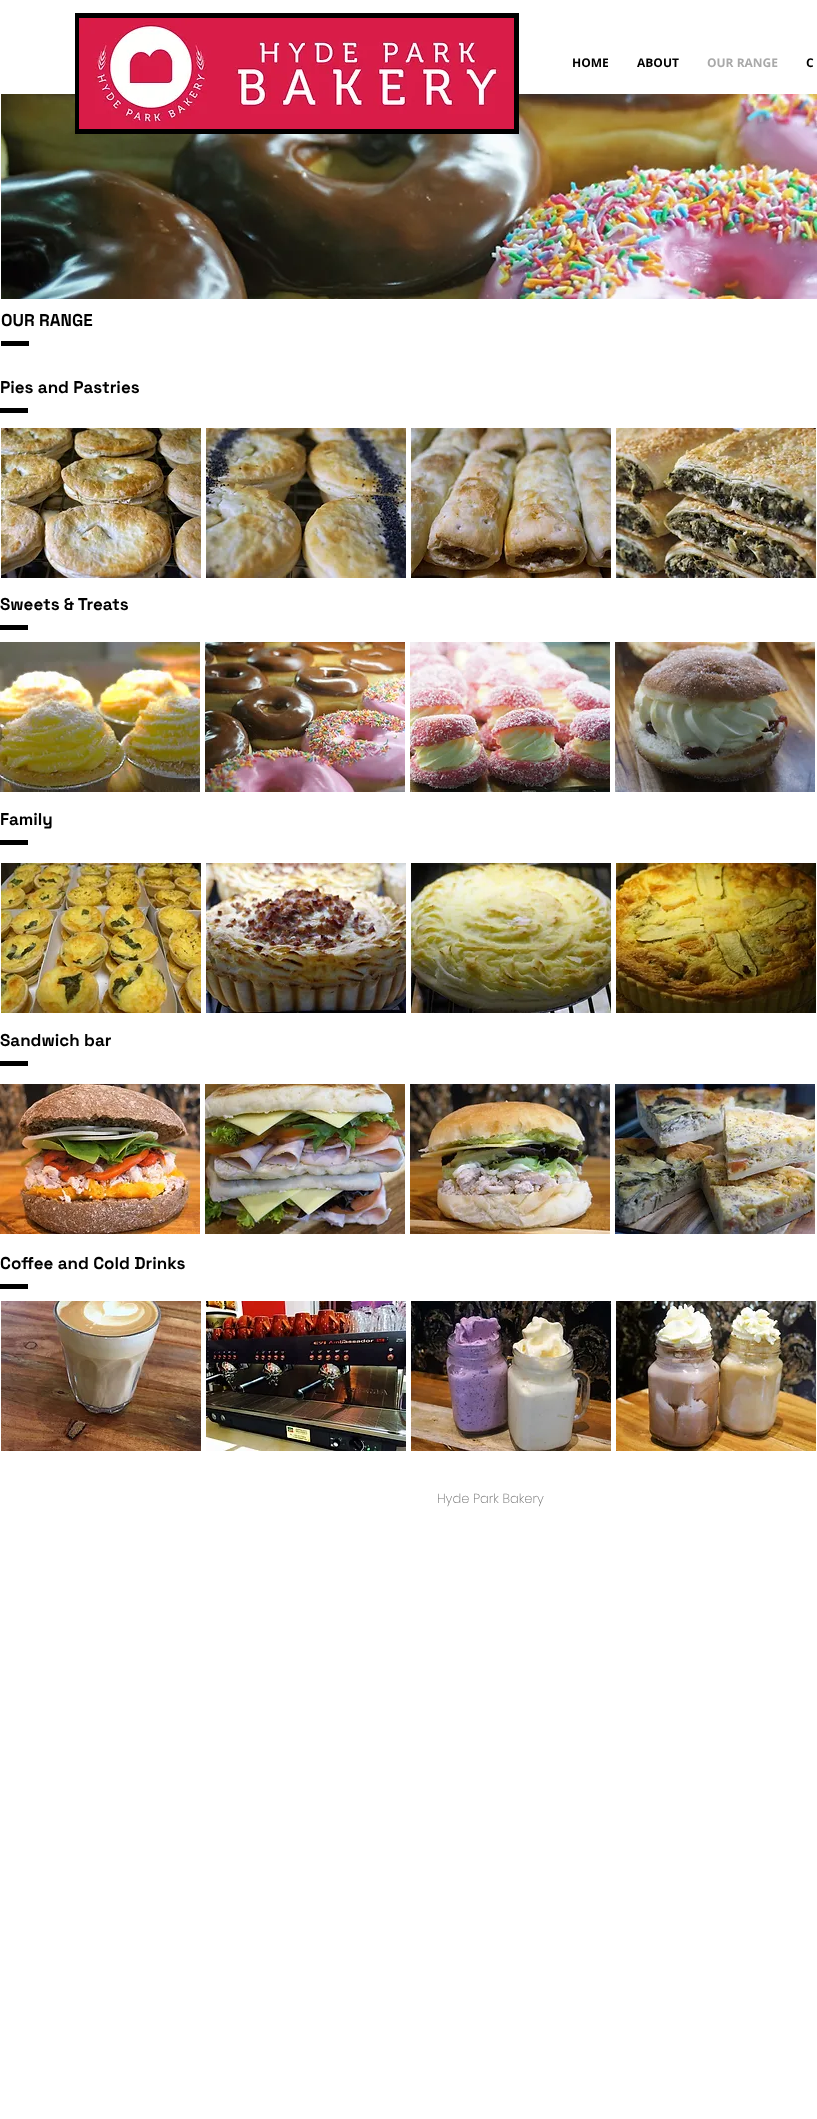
<svg xmlns="http://www.w3.org/2000/svg" xmlns:xlink="http://www.w3.org/1999/xlink" width="817" height="2119" viewBox="0 0 817 2119">
<style>
.cls-1{font:bold 12px Open Sans;fill:#000000}
.cls-2{font:bold 12px Open Sans;fill:#a9a9a9}
.cls-3{font:bold 17px Space Grotesk;fill:#000000}
.cls-4{font:200 13px Poppins;fill:#757575}
</style>
<rect width="100%" height="100%" fill="#ffffff"/>
<image xlink:href="image1.png" x="1" y="94" width="816" height="205"/>
<rect fill="none" stroke="#000000" stroke-width="5" x="77.5" y="15.5" width="439" height="116"/>
<image xlink:href="image0.png" x="79" y="18" width="435" height="111"/>
<rect fill="#000000" x="1" y="341" width="28" height="5"/>
<rect fill="#000000" x="0" y="408" width="28" height="5"/>
<image xlink:href="image2.png" x="1" y="428" width="200" height="150"/>
<image xlink:href="image3.png" x="206" y="428" width="200" height="150"/>
<image xlink:href="image4.png" x="411" y="428" width="200" height="150"/>
<image xlink:href="image5.png" x="616" y="428" width="200" height="150"/>
<rect fill="#000000" x="0" y="625" width="28" height="5"/>
<image xlink:href="image6.png" x="0" y="642" width="200" height="150"/>
<image xlink:href="image7.png" x="205" y="642" width="200" height="150"/>
<image xlink:href="image8.png" x="410" y="642" width="200" height="150"/>
<image xlink:href="image9.png" x="615" y="642" width="200" height="150"/>
<rect fill="#000000" x="0" y="840" width="28" height="5"/>
<image xlink:href="image10.png" x="1" y="863" width="200" height="150"/>
<image xlink:href="image11.png" x="206" y="863" width="200" height="150"/>
<image xlink:href="image12.png" x="411" y="863" width="200" height="150"/>
<image xlink:href="image13.png" x="616" y="863" width="200" height="150"/>
<rect fill="#000000" x="0" y="1061" width="28" height="5"/>
<image xlink:href="image14.png" x="0" y="1084" width="200" height="150"/>
<image xlink:href="image15.png" x="205" y="1084" width="200" height="150"/>
<image xlink:href="image16.png" x="410" y="1084" width="200" height="150"/>
<image xlink:href="image17.png" x="615" y="1084" width="200" height="150"/>
<rect fill="#000000" x="0" y="1284" width="28" height="5"/>
<image xlink:href="image18.png" x="1" y="1301" width="200" height="150"/>
<image xlink:href="image19.png" x="206" y="1301" width="200" height="150"/>
<image xlink:href="image20.png" x="411" y="1301" width="200" height="150"/>
<image xlink:href="image21.png" x="616" y="1301" width="200" height="150"/>
<text class="cls-1" x="572" y="67">HOME</text>
<text class="cls-1" x="637" y="67">ABOUT</text>
<text class="cls-2" x="707" y="67">OUR RANGE</text>
<text class="cls-1" x="806" y="67">C</text>
<text class="cls-3" x="1" y="326">OUR RANGE</text>
<text class="cls-3" x="0" y="393">Pies and Pastries</text>
<text class="cls-3" x="0" y="610">Sweets &amp; Treats</text>
<text class="cls-3" x="0" y="825">Family</text>
<text class="cls-3" x="0" y="1046">Sandwich bar</text>
<text class="cls-3" x="0" y="1269">Coffee and Cold Drinks</text>
<text class="cls-4" x="437" y="1503">Hyde Park Bakery</text>
</svg>
